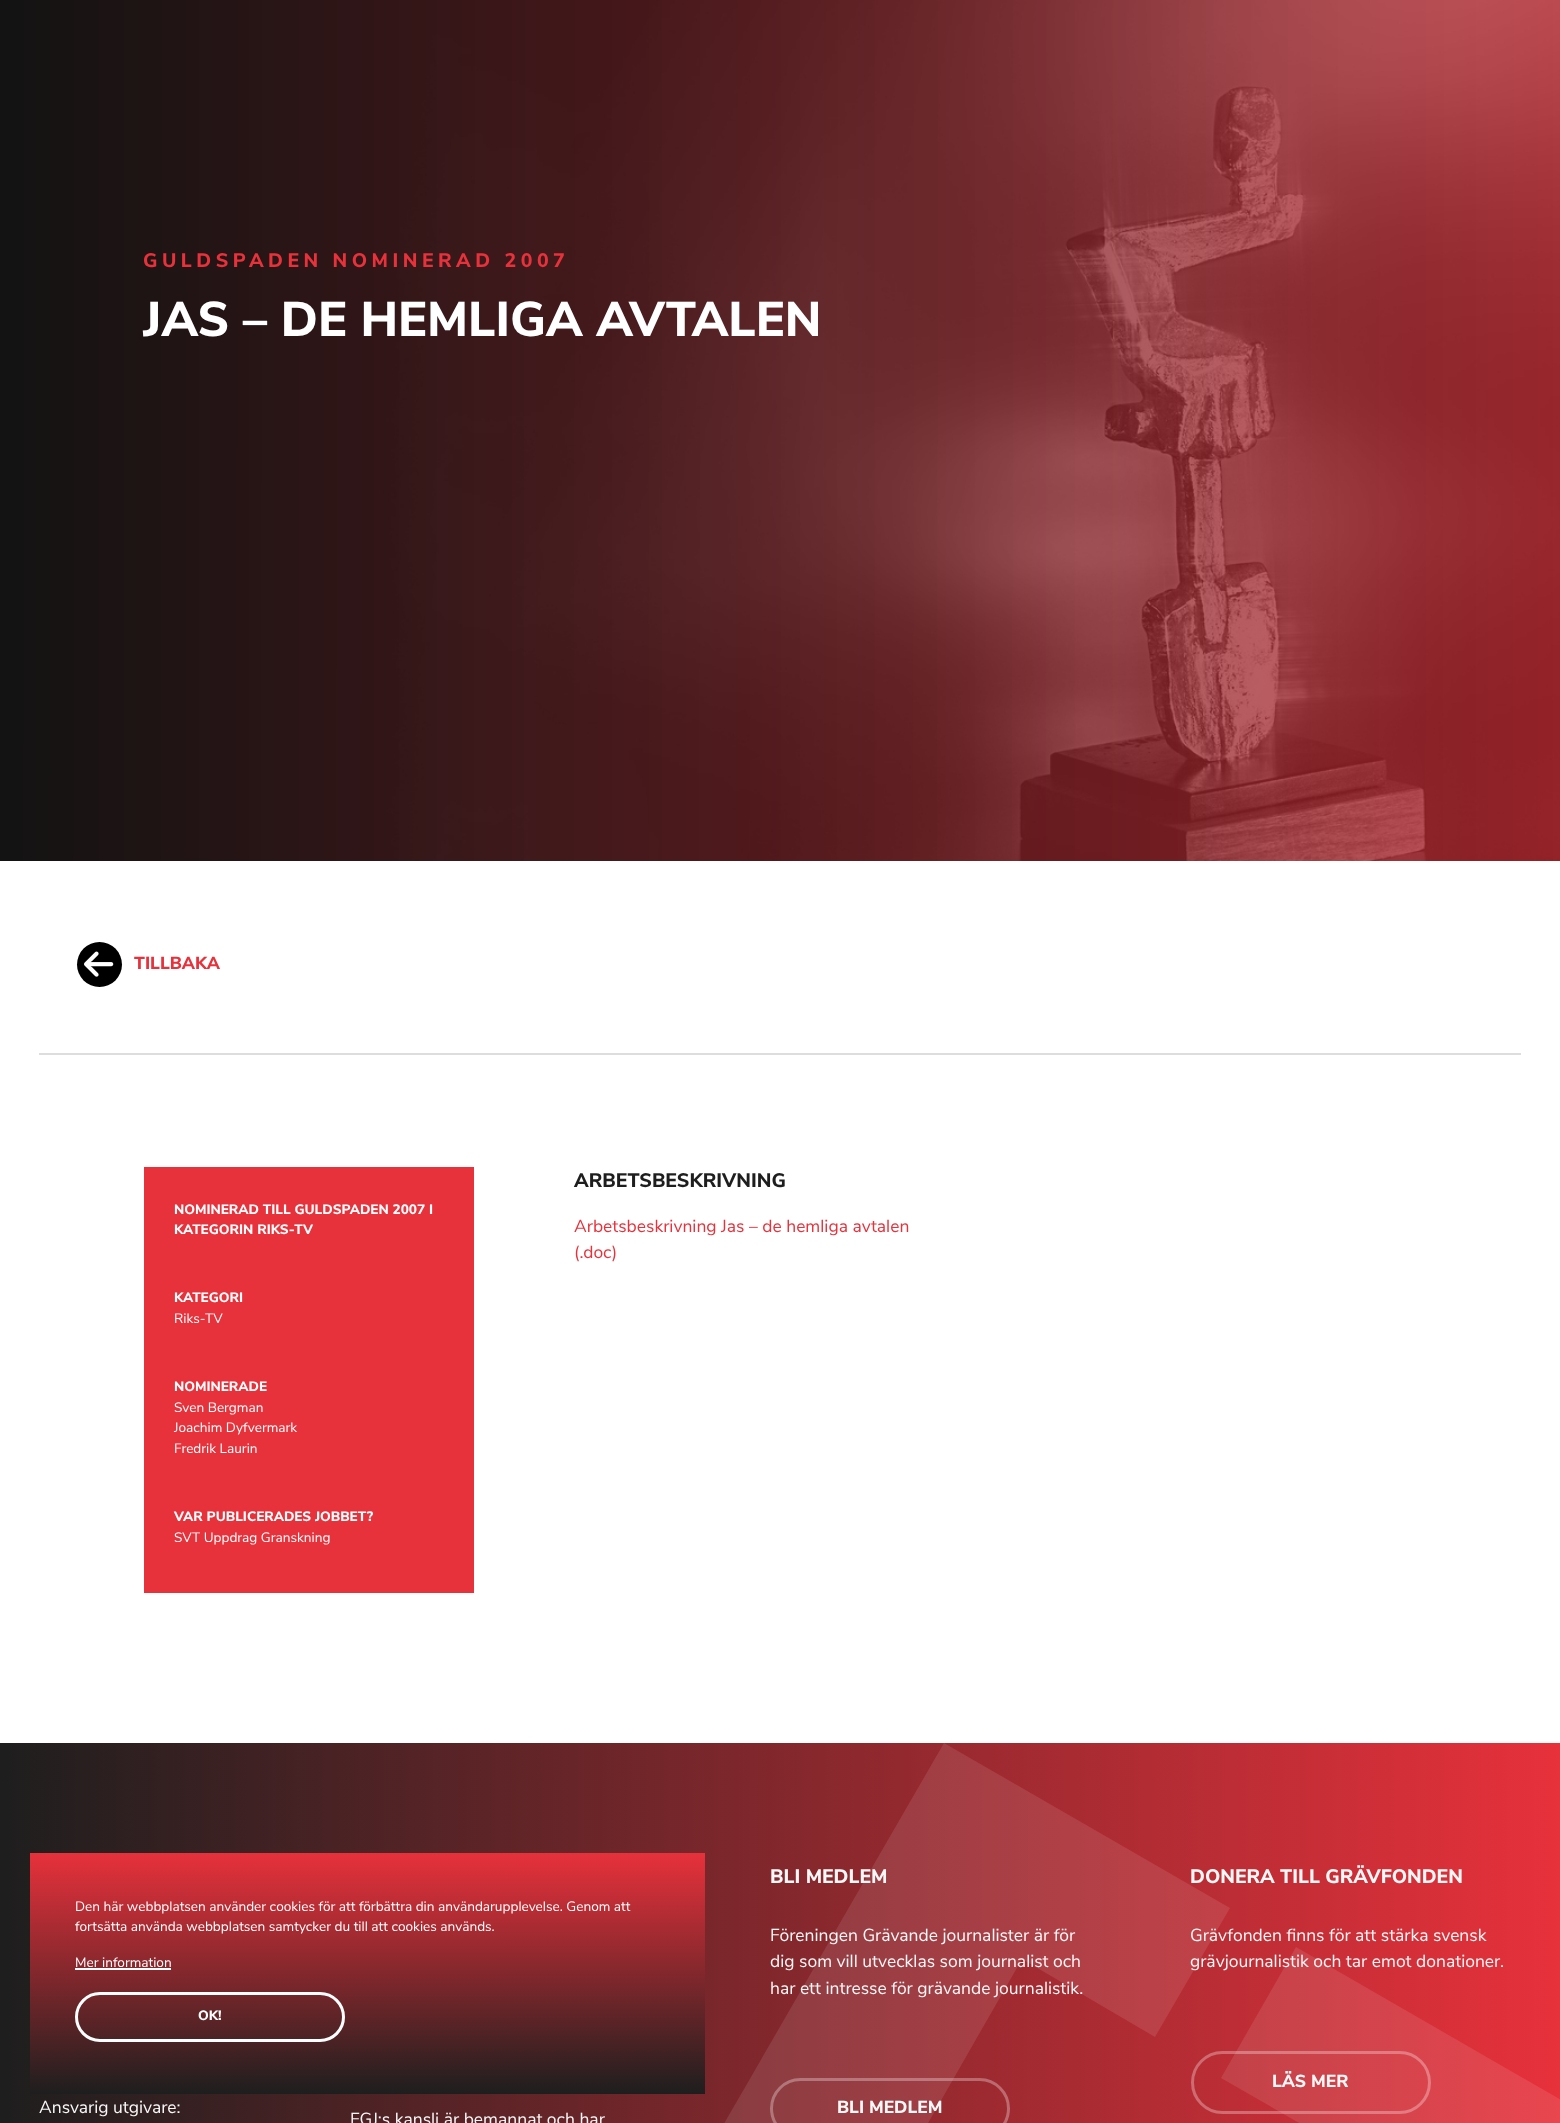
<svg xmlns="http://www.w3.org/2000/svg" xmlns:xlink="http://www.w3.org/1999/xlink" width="1560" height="2123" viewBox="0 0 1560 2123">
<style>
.cls-1{font:800 19.5px Nunito Sans;letter-spacing:4.5px;fill:#e7313b}
.cls-2{font:800 48.75px Nunito Sans;fill:#ffffff}
.cls-3{font:800 17.5px Nunito Sans;fill:#e7313b}
.cls-4{font:800 13.65px Nunito Sans;fill:#ffffff}
.cls-5{font:13.65px Nunito Sans;fill:#ffffff}
.cls-6{font:800 19.5px Nunito Sans;fill:#1e1e1e}
.cls-7{font:17.5px Nunito Sans;fill:#e7313b}
.cls-8{font:17.5px Nunito Sans;fill:#f8f8f8}
.cls-9{font:800 19.5px Nunito Sans;fill:#f8f8f8}
.cls-10{font:800 17.5px Nunito Sans;fill:#f8f8f8}
</style>
<defs>
<linearGradient id="g1" gradientUnits="userSpaceOnUse" x1="1560" y1="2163" x2="0" y2="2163"><stop offset="0" stop-color="#e7313b"/><stop offset="1" stop-color="#1e1e1e"/></linearGradient>
<linearGradient id="g2" gradientUnits="userSpaceOnUse" x1="368" y1="1853" x2="368" y2="2094"><stop offset="0" stop-color="#e7313b"/><stop offset="1" stop-color="#1e1e1e"/></linearGradient>
</defs>
<rect width="100%" height="100%" fill="#ffffff"/>
<image xlink:href="image0.png" x="0" y="0" width="1560" height="861"/>
<rect fill="#dddddd" x="39" y="1053" width="1482" height="2"/>
<circle fill="#000000" cx="99.5" cy="964.5" r="22.5"/>
<image xlink:href="image1.png" x="84" y="951" width="30" height="26"/>
<rect fill="#e7313b" x="144" y="1167" width="330" height="426"/>
<rect fill="url(#g1)" x="0" y="1743" width="1560" height="380"/>
<path fill="#ffffff" fill-opacity="0.1" d="M1296 1947L1221 2078L1353 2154L1172 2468L935 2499L844 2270L1022 1959L1155 2037L1230 1908L944 1743L644 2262L787 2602L921 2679L1288 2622L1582 2112L1296 1947"/>
<rect fill="none" stroke="#ffffff" stroke-opacity="0.3" stroke-width="3" x="771.5" y="2079.5" width="237" height="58" rx="29"/>
<rect fill="none" stroke="#ffffff" stroke-opacity="0.3" stroke-width="3" x="1192.5" y="2052.5" width="237" height="60" rx="30"/>
<rect fill="url(#g2)" x="30" y="1853" width="675" height="241"/>
<rect fill="#ffffff" x="75" y="1968" width="96" height="2"/>
<rect fill="none" stroke="#ffffff" stroke-width="3" x="76.5" y="1993.5" width="267" height="47" rx="23.5"/>
<text class="cls-1" x="143" y="267">GULDSPADEN NOMINERAD 2007</text>
<text class="cls-2" x="143" y="336">JAS – DE HEMLIGA AVTALEN</text>
<text class="cls-3" x="134" y="969">TILLBAKA</text>
<text class="cls-4"><tspan x="174" y="1214">NOMINERAD TILL GULDSPADEN 2007 I</tspan><tspan x="174" y="1234">KATEGORIN RIKS-TV</tspan></text>
<text class="cls-4" x="174" y="1302">KATEGORI</text>
<text class="cls-5" x="174" y="1323">Riks-TV</text>
<text class="cls-4" x="174" y="1391">NOMINERADE</text>
<text class="cls-5"><tspan x="174" y="1412">Sven Bergman</tspan><tspan x="174" y="1432">Joachim Dyfvermark</tspan><tspan x="174" y="1453">Fredrik Laurin</tspan></text>
<text class="cls-4" x="174" y="1521">VAR PUBLICERADES JOBBET?</text>
<text class="cls-5" x="174" y="1542">SVT Uppdrag Granskning</text>
<text class="cls-6" x="574" y="1187">ARBETSBESKRIVNING</text>
<text class="cls-7"><tspan x="574" y="1232">Arbetsbeskrivning Jas – de hemliga avtalen</tspan><tspan x="574" y="1258">(.doc)</tspan></text>
<text class="cls-8" x="39" y="2113">Ansvarig utgivare:</text>
<text class="cls-9" x="770" y="1883">BLI MEDLEM</text>
<text class="cls-8"><tspan x="770" y="1941">Föreningen Grävande journalister är för</tspan><tspan x="770" y="1967">dig som vill utvecklas som journalist och</tspan><tspan x="770" y="1994">har ett intresse för grävande journalistik.</tspan></text>
<text class="cls-10" x="837" y="2113">BLI MEDLEM</text>
<text class="cls-9" x="1190" y="1883">DONERA TILL GRÄVFONDEN</text>
<text class="cls-8"><tspan x="1190" y="1941">Grävfonden finns för att stärka svensk</tspan><tspan x="1190" y="1967">grävjournalistik och tar emot donationer.</tspan></text>
<text class="cls-10" x="1272" y="2087">LÄS MER</text>
<text class="cls-8" x="350" y="2125">FGJ:s kansli är bemannat och har</text>
<text class="cls-5"><tspan x="75" y="1911">Den här webbplatsen använder cookies för att förbättra din användarupplevelse. Genom att</tspan><tspan x="75" y="1931">fortsätta använda webbplatsen samtycker du till att cookies används.</tspan></text>
<text class="cls-5" x="75" y="1967">Mer information</text>
<text class="cls-4" x="198" y="2020">OK!</text>
</svg>
